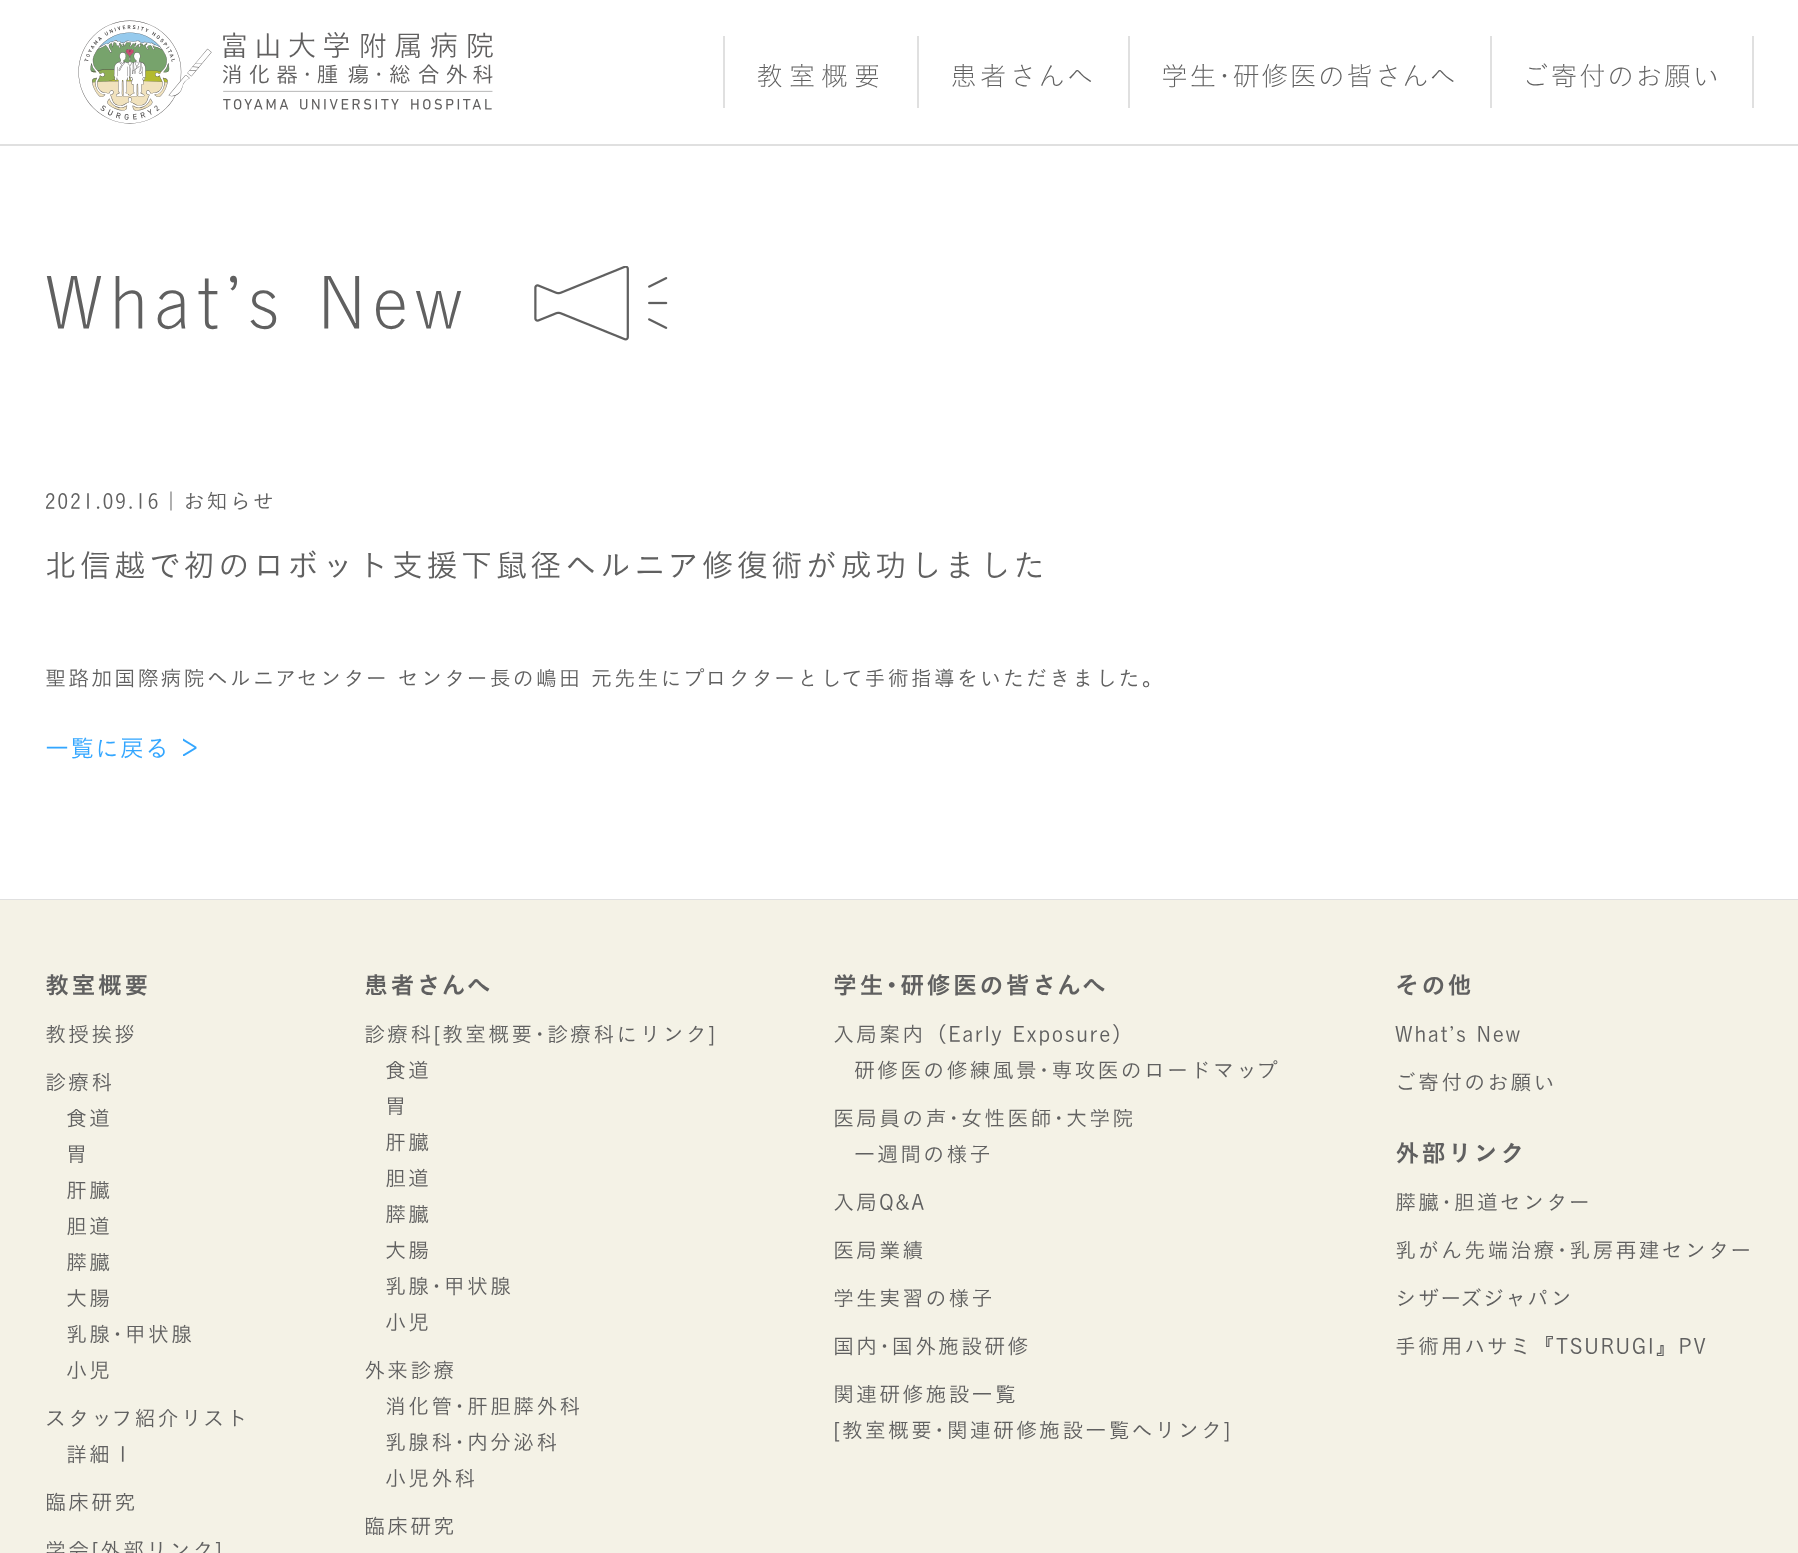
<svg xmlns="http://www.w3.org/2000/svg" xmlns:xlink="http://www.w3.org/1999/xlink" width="1798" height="1553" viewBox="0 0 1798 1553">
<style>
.cls-1{font:200 27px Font;letter-spacing:5.5px;fill:#606060}
.cls-2{font:200 27px Font;letter-spacing:2.75px;fill:#606060}
.cls-3{font:200 27px Font;letter-spacing:1.4px;fill:#606060}
.cls-4{font:200 72px Font;letter-spacing:7.25px;fill:#606060}
.cls-5{font:300 21px Font;letter-spacing:2.1px;fill:#606060}
.cls-6{font:300 31.5px Font;letter-spacing:3.15px;fill:#606060}
.cls-7{font:300 24px Font;letter-spacing:1px;fill:#33a6ff}
.cls-8{font:600 24px Font;letter-spacing:2.4px;fill:#606060}
</style>
<rect width="100%" height="100%" fill="#ffffff"/>
<rect fill="#e0e0e0" x="0" y="144" width="1798" height="2"/>
<image xlink:href="image0.png" x="78" y="20" width="415" height="104"/>
<rect fill="#e0e0e0" x="723" y="36" width="2" height="72"/>
<rect fill="#e0e0e0" x="917" y="36" width="2" height="72"/>
<rect fill="#e0e0e0" x="1128" y="36" width="2" height="72"/>
<rect fill="#e0e0e0" x="1752" y="36" width="2" height="72"/>
<rect fill="#e0e0e0" x="1490" y="36" width="2" height="72"/>
<image xlink:href="image1.png" x="534" y="266" width="134" height="75"/>
<image xlink:href="image2.png" x="183" y="738" width="14" height="18"/>
<rect fill="#e0e0e0" x="0" y="899" width="1798" height="1"/>
<rect fill="#f4f2e6" x="0" y="900" width="1798" height="653"/>
<text class="cls-1" x="756" y="86">教室概要</text>
<text class="cls-2" x="950" y="86">患者さんへ</text>
<text class="cls-3" x="1161" y="86">学生･研修医の皆さんへ</text>
<text class="cls-3" x="1522" y="86">ご寄付のお願い</text>
<text class="cls-4" x="45" y="330">What’s New</text>
<text class="cls-5" x="45" y="509">2021.09.16｜お知らせ</text>
<text class="cls-6" x="45" y="577">北信越で初のロボット支援下鼠径ヘルニア修復術が成功しました</text>
<text class="cls-5" x="45" y="686">聖路加国際病院ヘルニアセンター センター長の嶋田 元先生にプロクターとして手術指導をいただきました。</text>
<text class="cls-7" x="45" y="757">一覧に戻る</text>
<text class="cls-8" x="45" y="994">教室概要</text>
<text class="cls-5" x="45" y="1042">教授挨拶</text>
<text class="cls-5" x="45" y="1090">診療科</text>
<text class="cls-5"><tspan x="66" y="1126">食道</tspan><tspan x="66" y="1162">胃</tspan><tspan x="66" y="1198">肝臓</tspan><tspan x="66" y="1234">胆道</tspan><tspan x="66" y="1270">膵臓</tspan><tspan x="66" y="1306">大腸</tspan><tspan x="66" y="1342">乳腺･甲状腺</tspan><tspan x="66" y="1378">小児</tspan></text>
<text class="cls-5" x="45" y="1426">スタッフ紹介リスト</text>
<text class="cls-5" x="66" y="1462">詳細１</text>
<text class="cls-5" x="45" y="1510">臨床研究</text>
<text class="cls-5" x="45" y="1558">学会[外部リンク]</text>
<text class="cls-8" x="364" y="994">患者さんへ</text>
<text class="cls-5" x="364" y="1042">診療科[教室概要･診療科にリンク]</text>
<text class="cls-5"><tspan x="385" y="1078">食道</tspan><tspan x="385" y="1114">胃</tspan><tspan x="385" y="1150">肝臓</tspan><tspan x="385" y="1186">胆道</tspan><tspan x="385" y="1222">膵臓</tspan><tspan x="385" y="1258">大腸</tspan><tspan x="385" y="1294">乳腺･甲状腺</tspan><tspan x="385" y="1330">小児</tspan></text>
<text class="cls-5" x="364" y="1378">外来診療</text>
<text class="cls-5"><tspan x="385" y="1414">消化管･肝胆膵外科</tspan><tspan x="385" y="1450">乳腺科･内分泌科</tspan><tspan x="385" y="1486">小児外科</tspan></text>
<text class="cls-5" x="364" y="1534">臨床研究</text>
<text class="cls-8" x="833" y="994">学生･研修医の皆さんへ</text>
<text class="cls-5" x="833" y="1042">入局案内（Early Exposure）</text>
<text class="cls-5" x="854" y="1078">研修医の修練風景･専攻医のロードマップ</text>
<text class="cls-5" x="833" y="1126">医局員の声･女性医師･大学院</text>
<text class="cls-5" x="854" y="1162">一週間の様子</text>
<text class="cls-5" x="833" y="1210">入局Q&amp;A</text>
<text class="cls-5" x="833" y="1258">医局業績</text>
<text class="cls-5" x="833" y="1306">学生実習の様子</text>
<text class="cls-5" x="833" y="1354">国内･国外施設研修</text>
<text class="cls-5"><tspan x="833" y="1402">関連研修施設一覧</tspan><tspan x="833" y="1438">[教室概要･関連研修施設一覧へリンク]</tspan></text>
<text class="cls-8" x="1395" y="994">その他</text>
<text class="cls-5" x="1395" y="1042">What’s New</text>
<text class="cls-5" x="1395" y="1090">ご寄付のお願い</text>
<text class="cls-8" x="1395" y="1162">外部リンク</text>
<text class="cls-5" x="1395" y="1210">膵臓･胆道センター</text>
<text class="cls-5" x="1395" y="1258">乳がん先端治療･乳房再建センター</text>
<text class="cls-5" x="1395" y="1306">シザーズジャパン</text>
<text class="cls-5" x="1395" y="1354">手術用ハサミ『TSURUGI』PV</text>
</svg>
